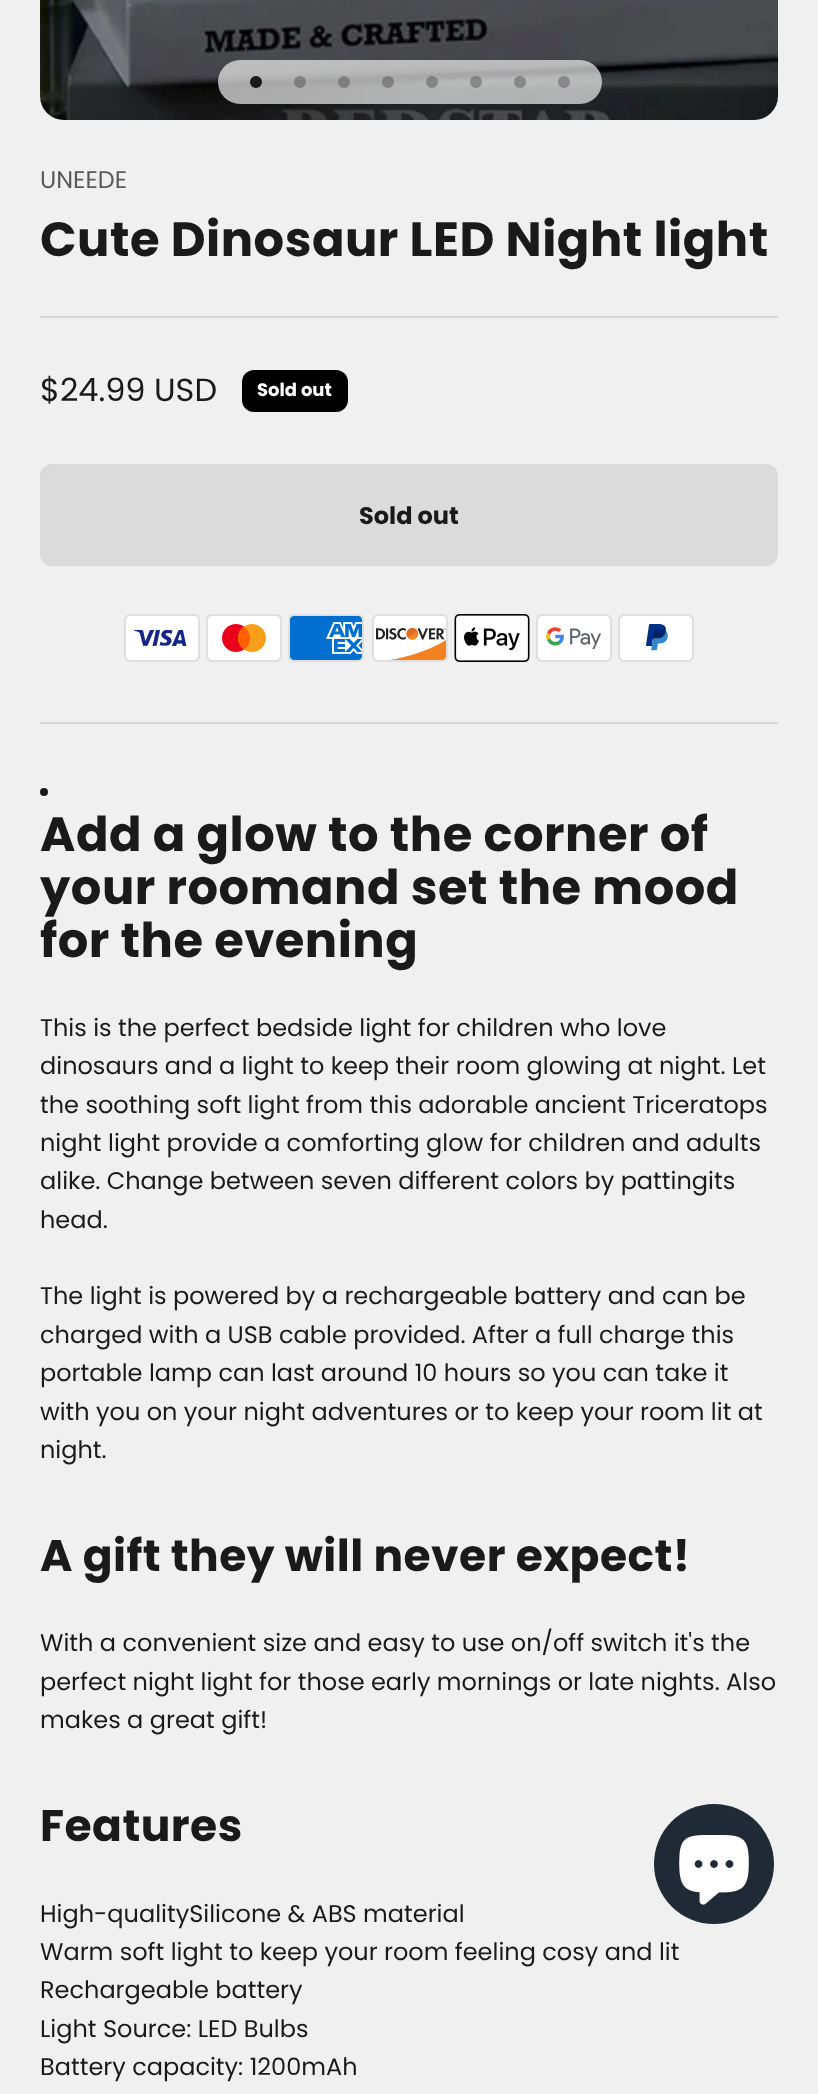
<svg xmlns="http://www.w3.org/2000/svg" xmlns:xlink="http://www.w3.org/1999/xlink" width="818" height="2094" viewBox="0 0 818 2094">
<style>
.cls-1{font:24px Poppins;fill:#5a5a5a}
.cls-2{font:bold 48px Poppins;letter-spacing:0.5px;fill:#1a1a1a}
.cls-3{font:32px Poppins;fill:#1a1a1a}
.cls-4{font:bold 18px Poppins;fill:#ffffff}
.cls-5{font:bold 24px Poppins;fill:#1a1a1a}
.cls-6{font:24px Poppins;fill:#1a1a1a}
.cls-7{font:bold 44px Poppins;letter-spacing:0.45px;fill:#1a1a1a}
</style>
<rect width="100%" height="100%" fill="#f0f0f0"/>
<image xlink:href="image0.png" x="40" y="0" width="738" height="120"/>
<rect fill="#f0f0f0" fill-opacity="0.7" x="218" y="60" width="384" height="44" rx="22"/>
<circle fill="#1a1a1a" cx="256" cy="82" r="6"/>
<circle fill="#1a1a1a" fill-opacity="0.3" cx="300" cy="82" r="6"/>
<circle fill="#1a1a1a" fill-opacity="0.3" cx="344" cy="82" r="6"/>
<circle fill="#1a1a1a" fill-opacity="0.3" cx="388" cy="82" r="6"/>
<circle fill="#1a1a1a" fill-opacity="0.3" cx="432" cy="82" r="6"/>
<circle fill="#1a1a1a" fill-opacity="0.3" cx="476" cy="82" r="6"/>
<circle fill="#1a1a1a" fill-opacity="0.3" cx="520" cy="82" r="6"/>
<circle fill="#1a1a1a" fill-opacity="0.3" cx="564" cy="82" r="6"/>
<rect fill="#d6d6d6" x="40" y="316" width="738" height="2"/>
<rect fill="#000000" x="242" y="370" width="106" height="42" rx="12"/>
<rect fill="#dbdbdb" x="40" y="464" width="738" height="102" rx="12"/>
<image xlink:href="image1.png" x="124" y="614" width="76" height="48"/>
<image xlink:href="image2.png" x="206" y="614" width="76" height="48"/>
<image xlink:href="image3.png" x="288" y="614" width="76" height="48"/>
<image xlink:href="image4.png" x="372" y="614" width="76" height="48"/>
<image xlink:href="image5.png" x="454" y="614" width="76" height="48"/>
<image xlink:href="image6.png" x="536" y="614" width="76" height="48"/>
<image xlink:href="image7.png" x="618" y="614" width="76" height="48"/>
<rect fill="#d6d6d6" x="40" y="722" width="738" height="2"/>
<circle fill="#1a1a1a" cx="44" cy="792" r="4"/>
<circle fill="#202a36" cx="714" cy="1864" r="60"/>
<image xlink:href="image8.png" x="679" y="1835" width="70" height="70"/>
<text class="cls-1" x="40" y="188">UNEEDE</text>
<text class="cls-2" x="40" y="256">Cute Dinosaur LED Night light</text>
<text class="cls-3" x="40" y="401">$24.99 USD</text>
<text class="cls-4" x="257" y="396">Sold out</text>
<text class="cls-5" x="359" y="524">Sold out</text>
<text class="cls-2"><tspan x="40" y="851">Add a glow to the corner of</tspan><tspan x="40" y="904">your roomand set the mood</tspan><tspan x="40" y="957">for the evening</tspan></text>
<text class="cls-6"><tspan x="40" y="1036">This is the perfect bedside light for children who love</tspan><tspan x="40" y="1074">dinosaurs and a light to keep their room glowing at night. Let</tspan><tspan x="40" y="1113">the soothing soft light from this adorable ancient Triceratops</tspan><tspan x="40" y="1151">night light provide a comforting glow for children and adults</tspan><tspan x="40" y="1189">alike. Change between seven different colors by pattingits</tspan><tspan x="40" y="1228">head.</tspan></text>
<text class="cls-6"><tspan x="40" y="1304">The light is powered by a rechargeable battery and can be</tspan><tspan x="40" y="1343">charged with a USB cable provided. After a full charge this</tspan><tspan x="40" y="1381">portable lamp can last around 10 hours so you can take it</tspan><tspan x="40" y="1420">with you on your night adventures or to keep your room lit at</tspan><tspan x="40" y="1458">night.</tspan></text>
<text class="cls-7" x="40" y="1571">A gift they will never expect!</text>
<text class="cls-6"><tspan x="40" y="1651">With a convenient size and easy to use on/off switch it's the</tspan><tspan x="40" y="1690">perfect night light for those early mornings or late nights. Also</tspan><tspan x="40" y="1728">makes a great gift!</tspan></text>
<text class="cls-7" x="40" y="1841">Features</text>
<text class="cls-6"><tspan x="40" y="1922">High-qualitySilicone &amp; ABS material</tspan><tspan x="40" y="1960">Warm soft light to keep your room feeling cosy and lit</tspan><tspan x="40" y="1998">Rechargeable battery</tspan><tspan x="40" y="2037">Light Source: LED Bulbs</tspan><tspan x="40" y="2075">Battery capacity: 1200mAh</tspan></text>
</svg>
